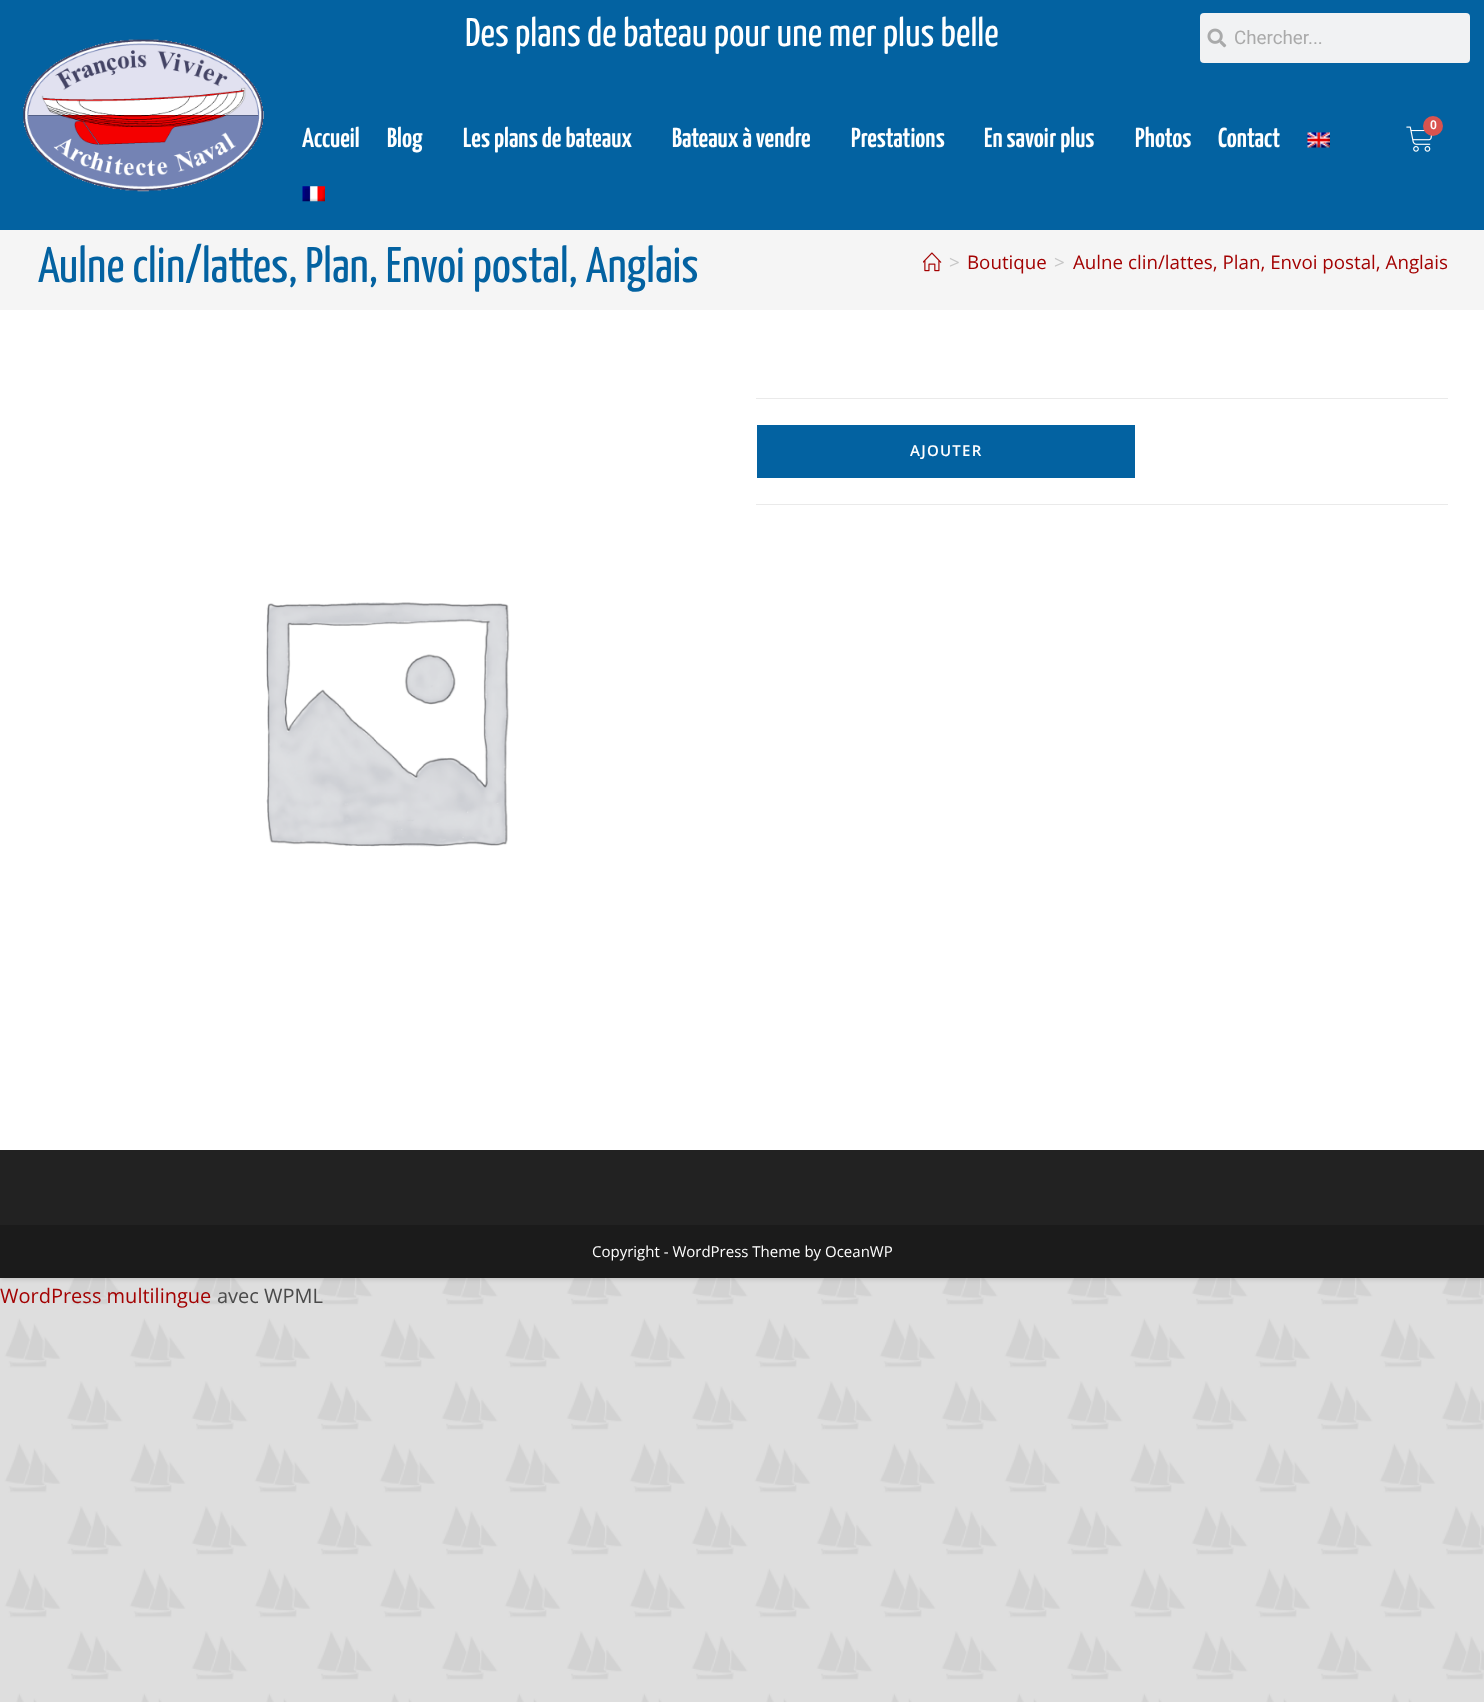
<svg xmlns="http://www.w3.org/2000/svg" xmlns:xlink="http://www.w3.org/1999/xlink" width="1484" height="1702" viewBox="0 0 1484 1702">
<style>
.cls-1{font:40px Yanone Kaffeesatz;fill:#ffffff}
.cls-2{font:18.75px Roboto;fill:#aaaaaa}
.cls-3{font:600 12px Roboto;fill:#ffffff}
.cls-4{font:600 27.5px Yanone Kaffeesatz;fill:#ffffff}
.cls-5{font:50px Yanone Kaffeesatz;fill:#0362a1}
.cls-6{font:18.75px Open Sans;fill:#c6c6c6}
.cls-7{font:18.75px Open Sans;fill:#a30202}
.cls-8{font:600 15px Open Sans;letter-spacing:1.25px;fill:#ffffff}
.cls-9{font:15px Open Sans;fill:#ffffff}
.cls-10{font:20px Open Sans;fill:#a30202}
.cls-11{font:20px Open Sans;fill:#4a4a4a}
</style>
<rect width="100%" height="100%" fill="#ffffff"/>
<image xlink:href="image0.png" x="0" y="1278" width="1484" height="424"/>
<rect fill="#000000" fill-opacity="0.15" filter="blur(2.5px)" x="0" y="1" width="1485" height="1278"/>
<rect fill="#ffffff" x="0" y="310" width="1484" height="840"/>
<rect fill="#0362a1" x="0" y="0" width="1484" height="230"/>
<image xlink:href="image1.png" x="23" y="39" width="241" height="153"/>
<rect fill="#f1f2f3" x="1200" y="13" width="270" height="50" rx="4"/>
<image xlink:href="image2.png" x="1207" y="28" width="20" height="20"/>
<image xlink:href="image3.png" x="1406" y="126" width="26" height="26"/>
<circle fill="#d9534f" cx="1433" cy="126" r="10"/>
<image xlink:href="image4.png" x="1307" y="132" width="23" height="16"/>
<image xlink:href="image5.png" x="302" y="186" width="23" height="16"/>
<rect fill="#f5f5f5" x="0" y="230" width="1484" height="80"/>
<image xlink:href="image6.png" x="923" y="252" width="19" height="20"/>
<rect fill="#eaeaea" x="756" y="398" width="692" height="1"/>
<rect fill="#eaeaea" x="756" y="504" width="692" height="1"/>
<rect fill="#0362a1" x="757" y="425" width="378" height="53"/>
<image xlink:href="image7.png" x="266" y="602" width="244" height="245"/>
<rect fill="#222222" x="0" y="1150" width="1484" height="75"/>
<rect fill="#1b1b1b" x="0" y="1225" width="1484" height="53"/>
<text class="cls-1" x="465" y="46">Des plans de bateau pour une mer plus belle</text>
<text class="cls-2" x="1234" y="44">Chercher...</text>
<text class="cls-3" x="1430" y="129">0</text>
<text class="cls-4" x="302" y="147">Accueil</text>
<text class="cls-4" x="387" y="147">Blog</text>
<text class="cls-4" x="463" y="147">Les plans de bateaux</text>
<text class="cls-4" x="672" y="147">Bateaux à vendre</text>
<text class="cls-4" x="851" y="147">Prestations</text>
<text class="cls-4" x="984" y="147">En savoir plus</text>
<text class="cls-4" x="1135" y="147">Photos</text>
<text class="cls-4" x="1218" y="147">Contact</text>
<text class="cls-5" x="38" y="282">Aulne clin/lattes, Plan, Envoi postal, Anglais</text>
<text class="cls-6" x="949" y="269">&gt;</text>
<text class="cls-7" x="967" y="269">Boutique</text>
<text class="cls-6" x="1054" y="269">&gt;</text>
<text class="cls-7" x="1073" y="269">Aulne clin/lattes, Plan, Envoi postal, Anglais</text>
<text class="cls-8" x="910" y="456">AJOUTER</text>
<text class="cls-9" x="592" y="1257">Copyright - WordPress Theme by OceanWP</text>
<text class="cls-10" x="0" y="1303">WordPress multilingue</text>
<text class="cls-11" x="217" y="1303">avec WPML</text>
</svg>
